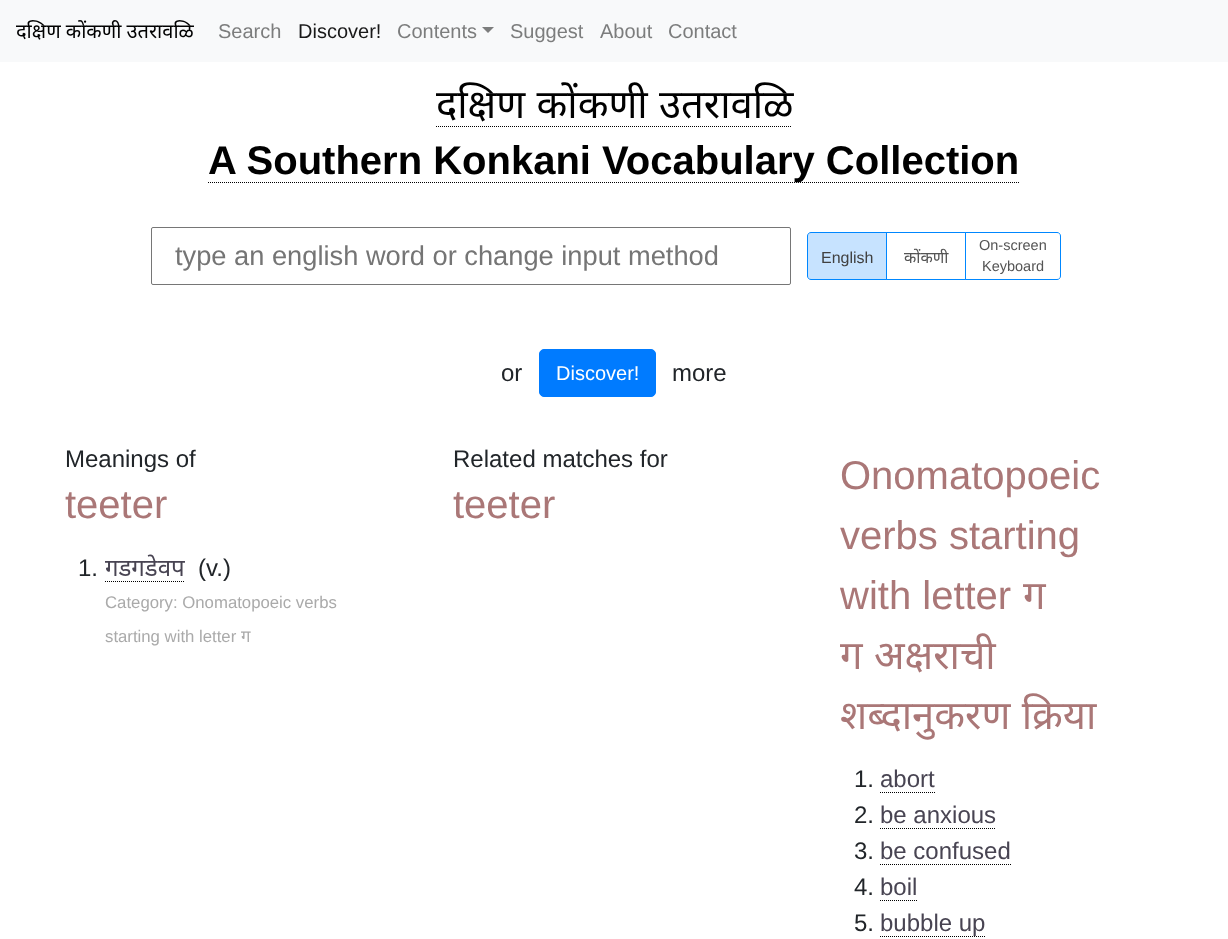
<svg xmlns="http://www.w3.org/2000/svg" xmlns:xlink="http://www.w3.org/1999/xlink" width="1228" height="939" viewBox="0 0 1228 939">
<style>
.cls-1{font:20px Noto Sans;fill:#000000}
.cls-2{font:20px Liberation Sans;fill:#7c7d7d}
.cls-3{font:20px Liberation Sans;fill:#191919}
.cls-4{font:40px Noto Sans;fill:#000000}
.cls-5{font:bold 40px Liberation Sans;fill:#000000}
.cls-6{font:27.25px Liberation Sans;fill:#757575}
.cls-7{font:16px Liberation Sans;fill:#414141}
.cls-8{font:16px Noto Sans;fill:#545454}
.cls-9{font:14.5px Liberation Sans;fill:#545454}
.cls-10{font:24px Liberation Sans;fill:#212529}
.cls-11{font:20px Liberation Sans;fill:#ffffff}
.cls-12{font:40px Liberation Sans;fill:#aa7777}
.cls-13{font:24px Noto Sans;fill:#484452}
.cls-14{font:16.75px Liberation Sans;fill:#aaaaaa}
.cls-15{font:16.75px Noto Sans;fill:#aaaaaa}
.cls-16{font:40px Noto Sans;fill:#aa7777}
.cls-17{font:24px Liberation Sans;fill:#484452}
</style>
<rect width="100%" height="100%" fill="#ffffff"/>
<rect fill="#f8f9fa" x="0" y="0" width="1228" height="62"/>
<path fill="#7c7d7d" d="M482 27H494L488 33Z"/>
<path fill="none" stroke="#000000" stroke-dasharray="1 1" d="M436 126.5H792"/>
<path fill="none" stroke="#000000" stroke-dasharray="1 1" d="M208 182.5H1020"/>
<rect fill="none" stroke="#767676" x="151.5" y="227.5" width="639" height="57" rx="1.5"/>
<rect fill="none" stroke="#0087ff" x="886.5" y="232.5" width="79" height="47"/>
<path fill="#c7e3ff" stroke="#0087ff" d="M811 232.5H886.5V279.5H811C809 279.5 807.5 278 807.5 276V236C807.5 234 809 232.5 811 232.5Z"/>
<path fill="#ffffff" stroke="#0087ff" d="M965.5 232.5H1057C1059 232.5 1060.5 234 1060.5 236V276C1060.5 278 1059 279.5 1057 279.5H965.5Z"/>
<rect fill="#007bff" stroke="#007bff" x="539.5" y="349.5" width="116" height="47" rx="4.5"/>
<path fill="none" stroke="#000000" stroke-dasharray="1 1" d="M105 581.5H184"/>
<path fill="none" stroke="#000000" stroke-dasharray="1 1" d="M880 792.5H935"/>
<path fill="none" stroke="#000000" stroke-dasharray="1 1" d="M880 828.5H996"/>
<path fill="none" stroke="#000000" stroke-dasharray="1 1" d="M880 864.5H1011"/>
<path fill="none" stroke="#000000" stroke-dasharray="1 1" d="M880 900.5H918"/>
<path fill="none" stroke="#000000" stroke-dasharray="1 1" d="M880 936.5H986"/>
<text class="cls-1" x="16" y="38">दक्षिण कोंकणी उतरावळि</text>
<text class="cls-2" x="218" y="38">Search</text>
<text class="cls-3" x="298" y="38">Discover!</text>
<text class="cls-2" x="397" y="38">Contents</text>
<text class="cls-2" x="510" y="38">Suggest</text>
<text class="cls-2" x="600" y="38">About</text>
<text class="cls-2" x="668" y="38">Contact</text>
<text class="cls-4" x="436" y="118" word-spacing="1">दक्षिण कोंकणी उतरावळि</text>
<text class="cls-5" x="208" y="174">A Southern Konkani Vocabulary Collection</text>
<text class="cls-6" x="175" y="265">type an english word or change input method</text>
<text class="cls-7" x="821" y="263">English</text>
<text class="cls-8" x="904" y="263">कोंकणी</text>
<text class="cls-9" x="979" y="250">On-screen</text>
<text class="cls-9" x="982" y="271">Keyboard</text>
<text class="cls-10" x="501" y="381">or</text>
<text class="cls-11" x="556" y="380">Discover!</text>
<text class="cls-10" x="672" y="381">more</text>
<text class="cls-10" x="65" y="467">Meanings of</text>
<text class="cls-12" x="65" y="518">teeter</text>
<text class="cls-10" x="78" y="576">1.</text>
<text class="cls-13" x="105" y="576">गडगडेवप</text>
<text class="cls-10" x="198" y="576">(v.)</text>
<text class="cls-14" x="105" y="608">Category: Onomatopoeic verbs</text>
<text class="cls-14" x="105" y="642">starting with letter</text>
<text class="cls-15" x="241" y="642">ग</text>
<text class="cls-10" x="453" y="467">Related matches for</text>
<text class="cls-12" x="453" y="518">teeter</text>
<text class="cls-12"><tspan x="840" y="489">Onomatopoeic</tspan><tspan x="840" y="549">verbs starting</tspan><tspan x="840" y="609">with letter</tspan></text>
<text class="cls-16" x="1023" y="609">ग</text>
<text class="cls-16"><tspan x="840" y="669" word-spacing="1">ग अक्षराची</tspan><tspan x="840" y="729" word-spacing="1">शब्दानुकरण क्रिया</tspan></text>
<text class="cls-10" x="854" y="787">1.</text>
<text class="cls-17" x="880" y="787">abort</text>
<text class="cls-10" x="854" y="823">2.</text>
<text class="cls-17" x="880" y="823">be anxious</text>
<text class="cls-10" x="854" y="859">3.</text>
<text class="cls-17" x="880" y="859">be confused</text>
<text class="cls-10" x="854" y="895">4.</text>
<text class="cls-17" x="880" y="895">boil</text>
<text class="cls-10" x="854" y="931">5.</text>
<text class="cls-17" x="880" y="931">bubble up</text>
</svg>
